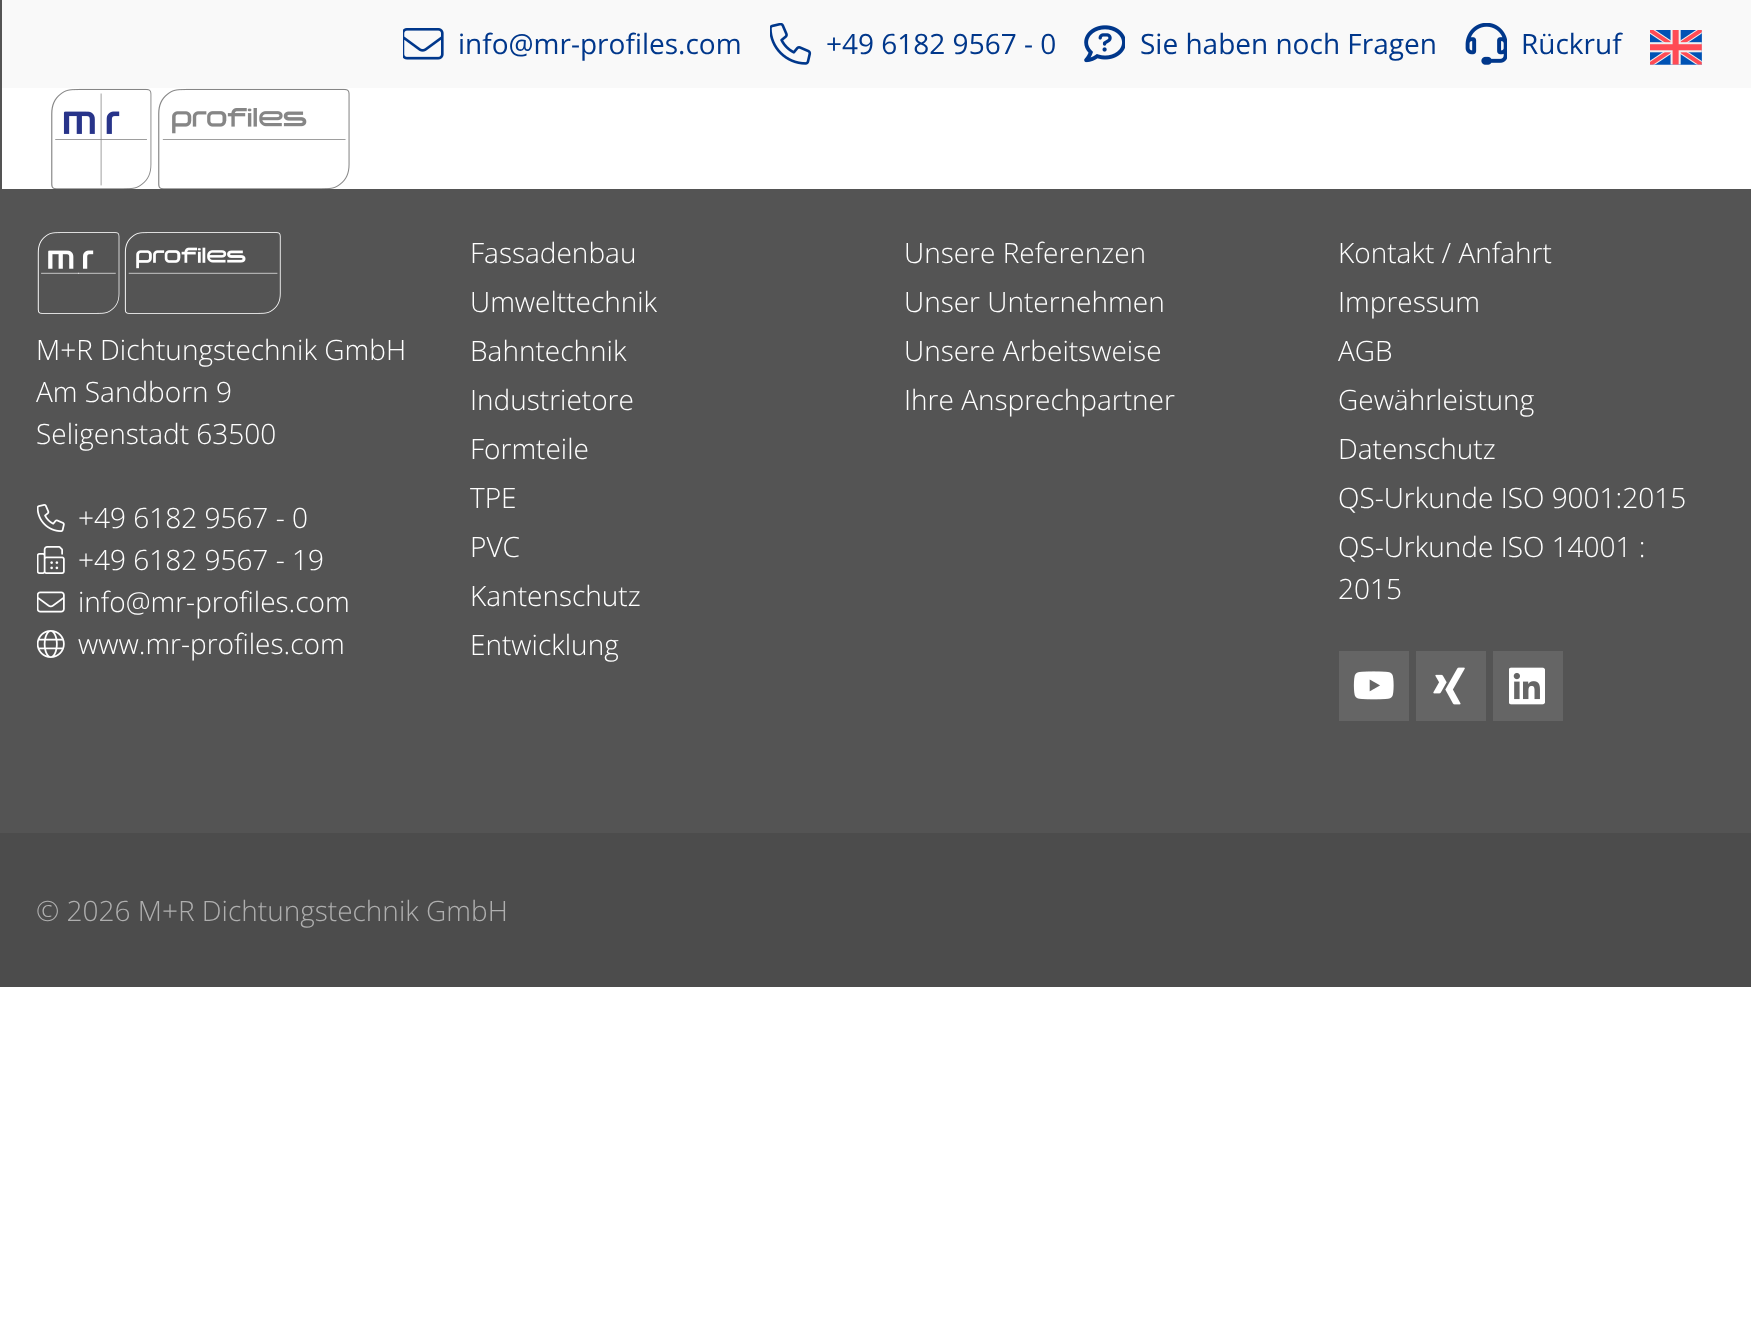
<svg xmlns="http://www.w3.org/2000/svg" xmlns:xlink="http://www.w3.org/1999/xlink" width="1751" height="1322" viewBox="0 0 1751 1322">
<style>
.cls-1{font:28px Open Sans;fill:#00378b}
.cls-2{font:300 28px Open Sans;fill:#ffffff}
.cls-3{font:300 28px Open Sans;fill:#afafaf}
</style>
<rect width="100%" height="100%" fill="#ffffff"/>
<rect fill="#545454" x="0" y="0" width="1751" height="833"/>
<rect fill="#ffffff" x="2" y="88" width="1749" height="101"/>
<rect fill="#f9f9f9" x="2" y="0" width="1749" height="88"/>
<image xlink:href="image0.png" x="403" y="28" width="41" height="32"/>
<image xlink:href="image1.png" x="770" y="23" width="42" height="42"/>
<image xlink:href="image2.png" x="1084" y="25" width="41" height="38"/>
<image xlink:href="image3.png" x="1465" y="23" width="42" height="42"/>
<image xlink:href="image4.png" x="1650" y="30" width="52" height="35"/>
<image xlink:href="image5.png" x="51" y="88" width="299" height="101"/>
<image xlink:href="image6.png" x="37" y="232" width="244" height="82"/>
<image xlink:href="image7.png" x="37" y="504" width="28" height="28"/>
<image xlink:href="image8.png" x="37" y="546" width="28" height="28"/>
<image xlink:href="image9.png" x="37" y="591" width="28" height="22"/>
<image xlink:href="image10.png" x="37" y="630" width="28" height="28"/>
<rect fill="#656565" x="1339" y="651" width="70" height="70"/>
<image xlink:href="image11.png" x="1353" y="671" width="41" height="29"/>
<rect fill="#656565" x="1416" y="651" width="70" height="70"/>
<image xlink:href="image12.png" x="1433" y="667" width="32" height="38"/>
<rect fill="#656565" x="1493" y="651" width="70" height="70"/>
<image xlink:href="image13.png" x="1509" y="667" width="36" height="38"/>
<rect fill="#4c4c4c" x="0" y="833" width="1751" height="154"/>
<text class="cls-1" x="458" y="54">info@mr-profiles.com</text>
<text class="cls-1" x="826" y="54">+49 6182 9567 - 0</text>
<text class="cls-1" x="1140" y="54">Sie haben noch Fragen</text>
<text class="cls-1" x="1521" y="54">Rückruf</text>
<text class="cls-2"><tspan x="36" y="360">M+R Dichtungstechnik GmbH</tspan><tspan x="36" y="402">Am Sandborn 9</tspan><tspan x="36" y="444">Seligenstadt 63500</tspan></text>
<text class="cls-2"><tspan x="78" y="528">+49 6182 9567 - 0</tspan><tspan x="78" y="570">+49 6182 9567 - 19</tspan><tspan x="78" y="612">info@mr-profiles.com</tspan><tspan x="78" y="654">www.mr-profiles.com</tspan></text>
<text class="cls-2"><tspan x="470" y="263">Fassadenbau</tspan><tspan x="470" y="312">Umwelttechnik</tspan><tspan x="470" y="361">Bahntechnik</tspan><tspan x="470" y="410">Industrietore</tspan><tspan x="470" y="459">Formteile</tspan><tspan x="470" y="508">TPE</tspan><tspan x="470" y="557">PVC</tspan><tspan x="470" y="606">Kantenschutz</tspan><tspan x="470" y="655">Entwicklung</tspan></text>
<text class="cls-2"><tspan x="904" y="263">Unsere Referenzen</tspan><tspan x="904" y="312">Unser Unternehmen</tspan><tspan x="904" y="361">Unsere Arbeitsweise</tspan><tspan x="904" y="410">Ihre Ansprechpartner</tspan></text>
<text class="cls-2"><tspan x="1338" y="263">Kontakt / Anfahrt</tspan><tspan x="1338" y="312">Impressum</tspan><tspan x="1338" y="361">AGB</tspan><tspan x="1338" y="410">Gewährleistung</tspan><tspan x="1338" y="459">Datenschutz</tspan><tspan x="1338" y="508">QS-Urkunde ISO 9001:2015</tspan><tspan x="1338" y="557">QS-Urkunde ISO 14001 :</tspan><tspan x="1338" y="599">2015</tspan></text>
<text class="cls-3" x="36" y="921">© 2026 M+R Dichtungstechnik GmbH</text>
</svg>
